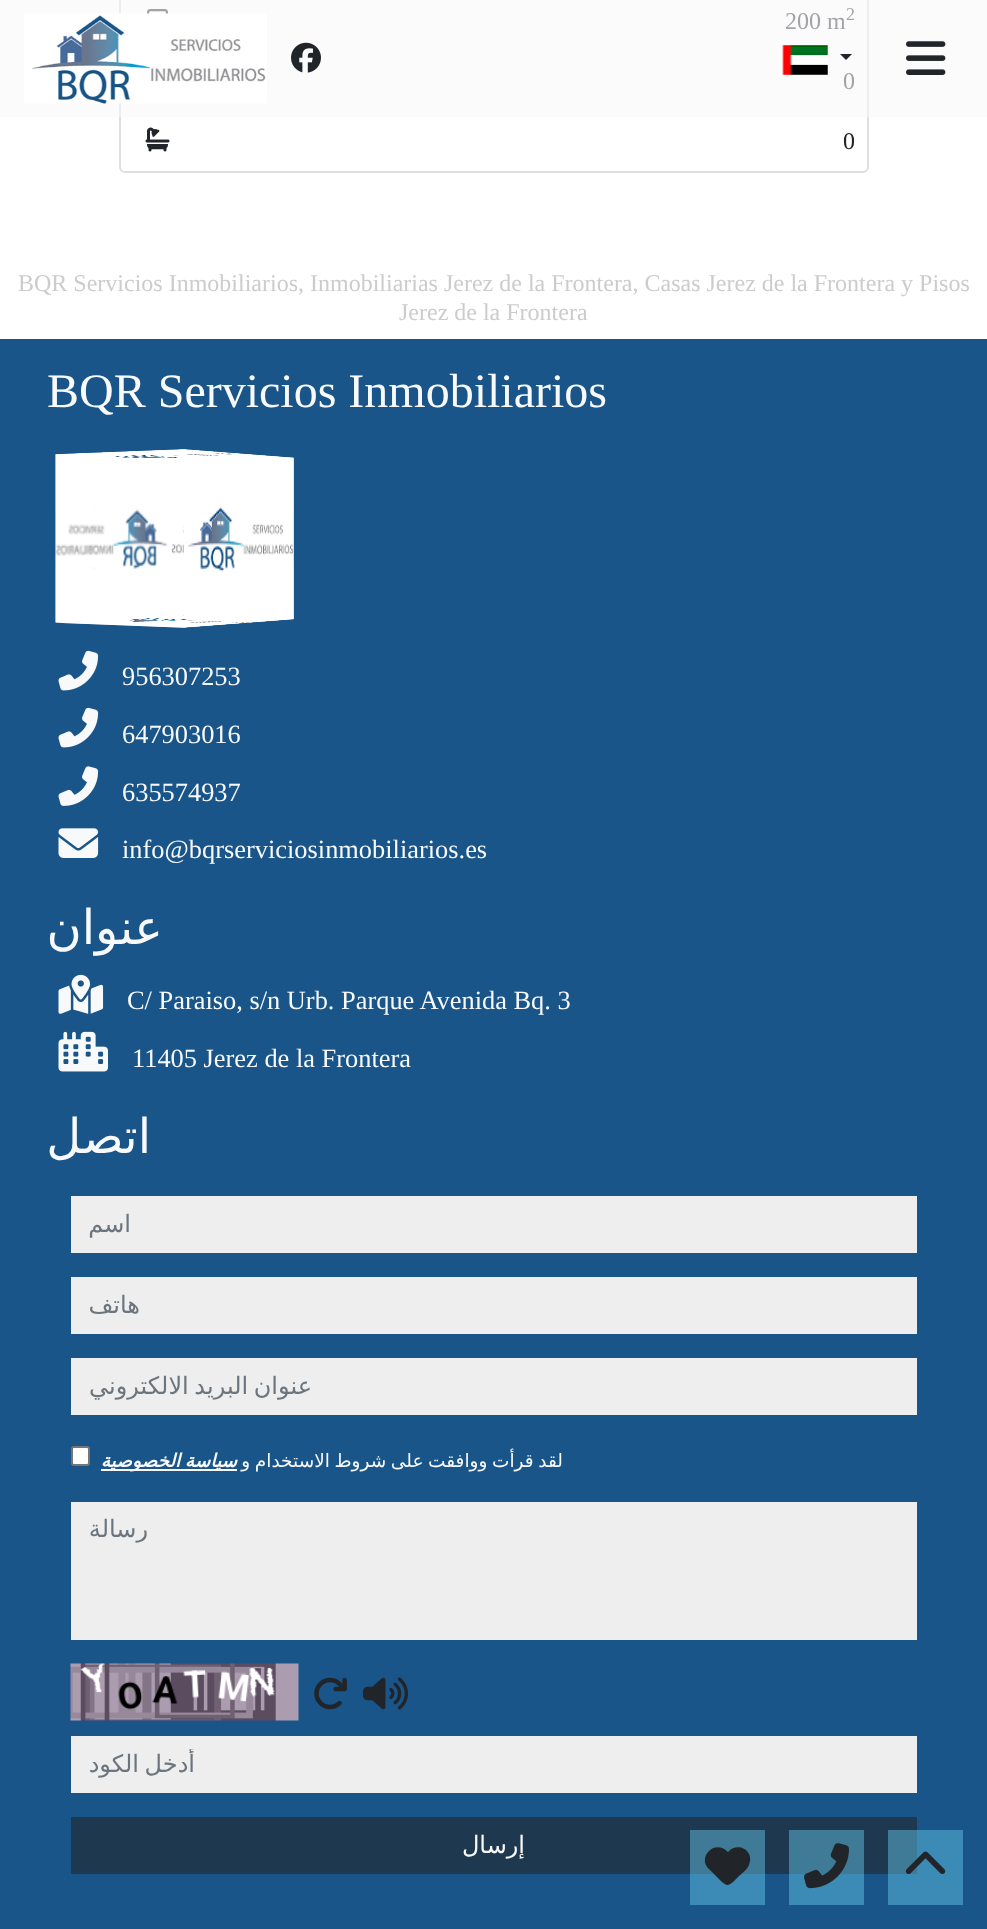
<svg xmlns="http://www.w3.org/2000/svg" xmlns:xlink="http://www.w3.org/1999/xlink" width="987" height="1929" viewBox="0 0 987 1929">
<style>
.cls-1{font:24px Liberation Serif;fill:#212529}
.cls-2{font:18px Liberation Serif;fill:#212529}
.cls-3{font:24px Liberation Serif;fill:#cccccc}
.cls-4{font:48px Liberation Serif;fill:#f8f9fa}
.cls-5{font:26.4px Liberation Serif;fill:#f8f9fa}
.cls-6{font:48px DejaVu Sans;direction:rtl;fill:#f8f9fa}
.cls-7{font:24px DejaVu Sans;direction:rtl;fill:#6c757d}
.cls-8{font:italic bold 18.5px DejaVu Sans;direction:rtl;fill:#f8f9fa}
.cls-9{font:18.5px DejaVu Sans;direction:rtl;fill:#f8f9fa}
.cls-10{font:24px DejaVu Sans;direction:rtl;fill:#f8f9fa}
</style>
<defs>
<clipPath id="clip1"><rect x="89" y="1749" width="810" height="29"/></clipPath>
</defs>
<rect width="100%" height="100%" fill="#ffffff"/>
<rect fill="none" stroke="#dfdfdf" stroke-width="2" x="120" y="-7" width="748" height="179" rx="5"/>
<image xlink:href="image4.png" x="147" y="9" width="21" height="5"/>
<image xlink:href="image5.png" x="145" y="127" width="25" height="25"/>
<rect fill="#195589" x="0" y="339" width="987" height="1590"/>
<rect fill="#3c8ab6" x="690" y="1874" width="75" height="31"/>
<rect fill="#3c8ab6" x="789" y="1874" width="75" height="31"/>
<rect fill="#3c8ab6" x="888" y="1830" width="75" height="75"/>
<image xlink:href="image6.png" x="55" y="449" width="129" height="179"/>
<image xlink:href="image8.png" x="55" y="454" width="116" height="169"/>
<image xlink:href="image10.png" x="171" y="457" width="123" height="163"/>
<image xlink:href="image9.png" x="183" y="449" width="111" height="179"/>
<image xlink:href="image7.png" x="58" y="449" width="235" height="13"/>
<image xlink:href="image11.png" x="56" y="616" width="237" height="12"/>
<image xlink:href="image12.png" x="58" y="650" width="41" height="41"/>
<image xlink:href="image12.png" x="58" y="707" width="41" height="41"/>
<image xlink:href="image13.png" x="58" y="766" width="41" height="40"/>
<image xlink:href="image14.png" x="58" y="828" width="41" height="30"/>
<image xlink:href="image15.png" x="58" y="974" width="46" height="40"/>
<image xlink:href="image16.png" x="58" y="1031" width="50" height="41"/>
<rect fill="#eeeeee" x="71" y="1196" width="846" height="57"/>
<rect fill="#eeeeee" x="71" y="1277" width="846" height="57"/>
<rect fill="#eeeeee" x="71" y="1358" width="846" height="57"/>
<rect fill="#ffffff" stroke="#767676" stroke-width="2" x="72" y="1447" width="17" height="18" rx="2"/>
<rect fill="#f8f9fa" x="101" y="1469" width="136" height="2"/>
<rect fill="#eeeeee" x="71" y="1502" width="846" height="138"/>
<image xlink:href="image17.png" x="70" y="1663" width="229" height="58"/>
<image xlink:href="image18.png" x="314" y="1677" width="33" height="33"/>
<image xlink:href="image19.png" x="363" y="1677" width="45" height="33"/>
<rect fill="#eeeeee" x="71" y="1736" width="846" height="57"/>
<rect fill="#1e384f" x="71" y="1817" width="846" height="57"/>
<rect fill="#3f7b97" x="690" y="1830" width="75" height="44"/>
<rect fill="#3f7b97" x="789" y="1830" width="75" height="44"/>
<rect fill="#3f7b97" x="888" y="1830" width="29" height="44"/>
<path fill="#212529" d="M709 1869L725 1884L709 1869L722 1882C727 1886 728 1886 733 1882L738 1877C742 1873 747 1870 749 1865C755 1851 738 1841 728 1852C714 1838 697 1858 709 1869Z"/>
<image xlink:href="image20.png" x="804" y="1843" width="45" height="46"/>
<image xlink:href="image21.png" x="905" y="1851" width="41" height="23"/>
<text class="cls-1" x="785" y="29">200 m</text>
<text class="cls-2" x="846" y="20">2</text>
<text class="cls-1" x="843" y="89">0</text>
<rect fill="#f8f9fa" fill-opacity="0.6" x="0" y="0" width="987" height="117"/>
<path fill="#212529" d="M840 54H852L846 60Z"/>
<image xlink:href="image2.png" x="782" y="45" width="46" height="30"/>
<image xlink:href="image3.png" x="906" y="41" width="40" height="34"/>
<image xlink:href="image1.png" x="291" y="42" width="30" height="31"/>
<image xlink:href="image0.png" x="24" y="13" width="243" height="91"/>
<text class="cls-1" x="843" y="149">0</text>
<text class="cls-3" x="18" y="291">BQR Servicios Inmobiliarios, Inmobiliarias Jerez de la Frontera, Casas Jerez de la Frontera y Pisos</text>
<text class="cls-3" x="399" y="320">Jerez de la Frontera</text>
<text class="cls-4" x="47" y="407">BQR Servicios Inmobiliarios</text>
<text class="cls-5" x="122" y="685">956307253</text>
<text class="cls-5" x="122" y="743">647903016</text>
<text class="cls-5" x="122" y="801">635574937</text>
<text class="cls-5" x="122" y="858">info@bqrserviciosinmobiliarios.es</text>
<text class="cls-6" x="163" y="944">عنوان</text>
<text class="cls-5" x="127" y="1009">C/ Paraiso, s/n Urb. Parque Avenida Bq. 3</text>
<text class="cls-5" x="132" y="1067">11405 Jerez de la Frontera</text>
<text class="cls-6" x="151" y="1153">اتصل</text>
<text class="cls-7" x="131" y="1232">اسم</text>
<text class="cls-7" x="140" y="1313">هاتف</text>
<text class="cls-7" x="312" y="1394" word-spacing="-2">عنوان البريد الالكتروني</text>
<text class="cls-8" x="237" y="1467" word-spacing="-1.25">سياسة الخصوصية</text>
<text class="cls-9" x="563" y="1467" word-spacing="-1.25">لقد قرأت ووافقت على شروط الاستخدام و</text>
<text class="cls-7" x="148" y="1537">رسالة</text>
<g clip-path="url(#clip1)">
<text class="cls-7" x="195" y="1772" word-spacing="-2">أدخل الكود</text>
</g>
<text class="cls-10" x="525" y="1853">إرسال</text>
</svg>
